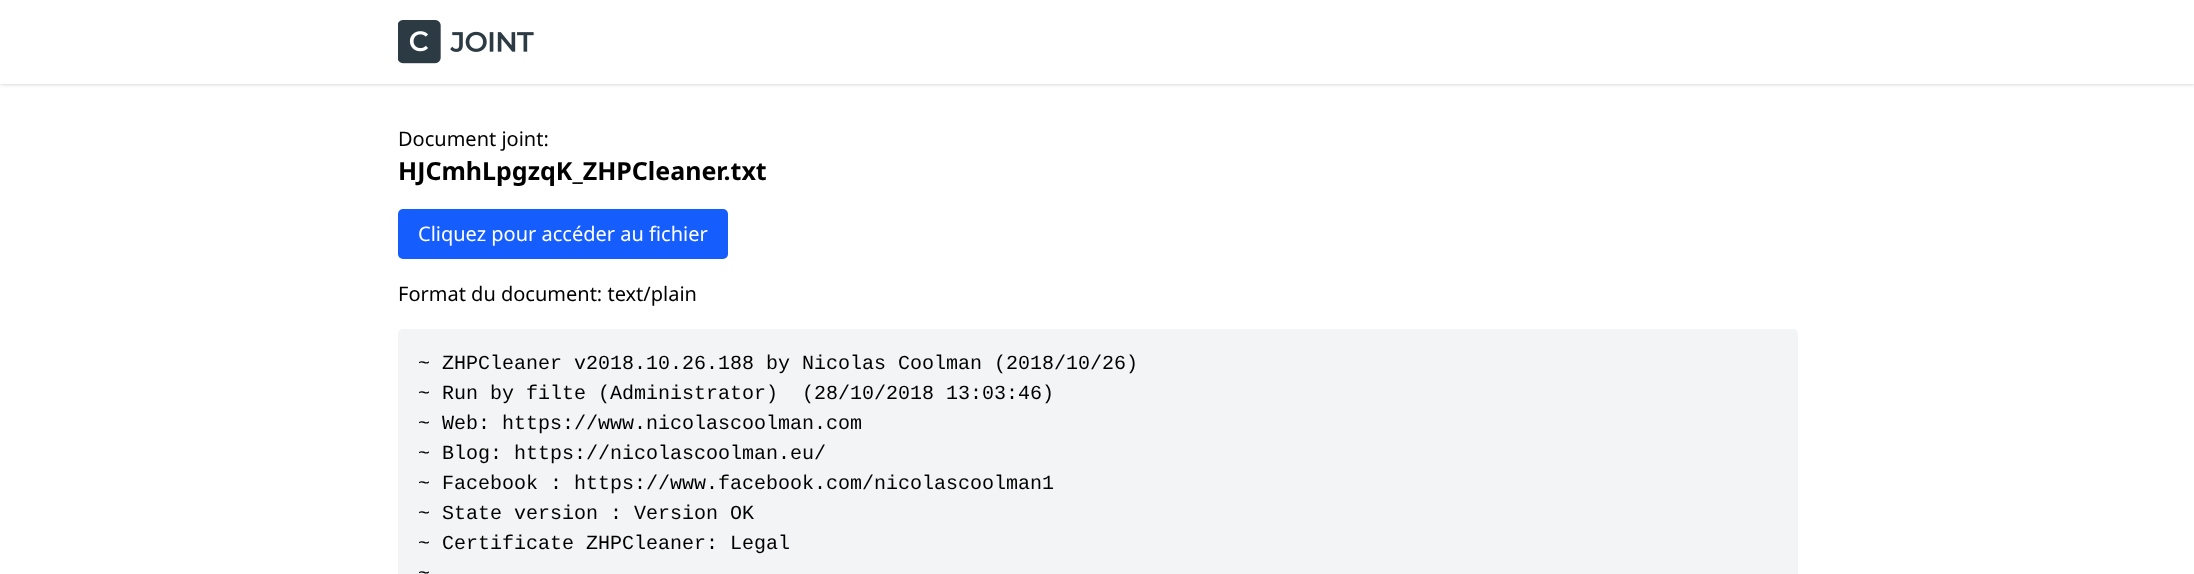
<svg xmlns="http://www.w3.org/2000/svg" xmlns:xlink="http://www.w3.org/1999/xlink" width="2194" height="574" viewBox="0 0 2194 574">
<style>
.cls-1{font:20px Noto Sans;fill:#000000}
.cls-2{font:bold 25px Noto Sans;fill:#000000}
.cls-3{font:20px Noto Sans;fill:#ffffff}
.cls-4{font:20px Liberation Mono;fill:#000000}
</style>
<rect width="100%" height="100%" fill="#ffffff"/>
<rect fill="#000000" fill-opacity="0.1" filter="blur(1px)" x="1" y="3" width="2193" height="81"/>
<rect fill="#000000" fill-opacity="0.1" filter="blur(2px)" x="0" y="1" width="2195" height="84"/>
<rect fill="#ffffff" x="0" y="0" width="2194" height="84"/>
<image xlink:href="image0.png" x="398" y="20" width="136" height="44"/>
<rect fill="#155dfc" x="398" y="209" width="330" height="50" rx="5"/>
<rect fill="#f3f4f6" x="398" y="329" width="1400" height="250" rx="5"/>
<text class="cls-1" x="398" y="146">Document joint:</text>
<text class="cls-2" x="398" y="180">HJCmhLpgzqK_ZHPCleaner.txt</text>
<text class="cls-3" x="418" y="241">Cliquez pour accéder au fichier</text>
<text class="cls-1" x="398" y="301">Format du document: text/plain</text>
<text class="cls-4" xml:space="preserve"><tspan x="418" y="369">~ ZHPCleaner v2018.10.26.188 by Nicolas Coolman (2018/10/26)</tspan><tspan x="418" y="399">~ Run by filte (Administrator)  (28/10/2018 13:03:46)</tspan><tspan x="418" y="429">~ Web: https://www.nicolascoolman.com</tspan><tspan x="418" y="459">~ Blog: https://nicolascoolman.eu/</tspan><tspan x="418" y="489">~ Facebook : https://www.facebook.com/nicolascoolman1</tspan><tspan x="418" y="519">~ State version : Version OK</tspan><tspan x="418" y="549">~ Certificate ZHPCleaner: Legal</tspan><tspan x="418" y="579">~</tspan></text>
</svg>
